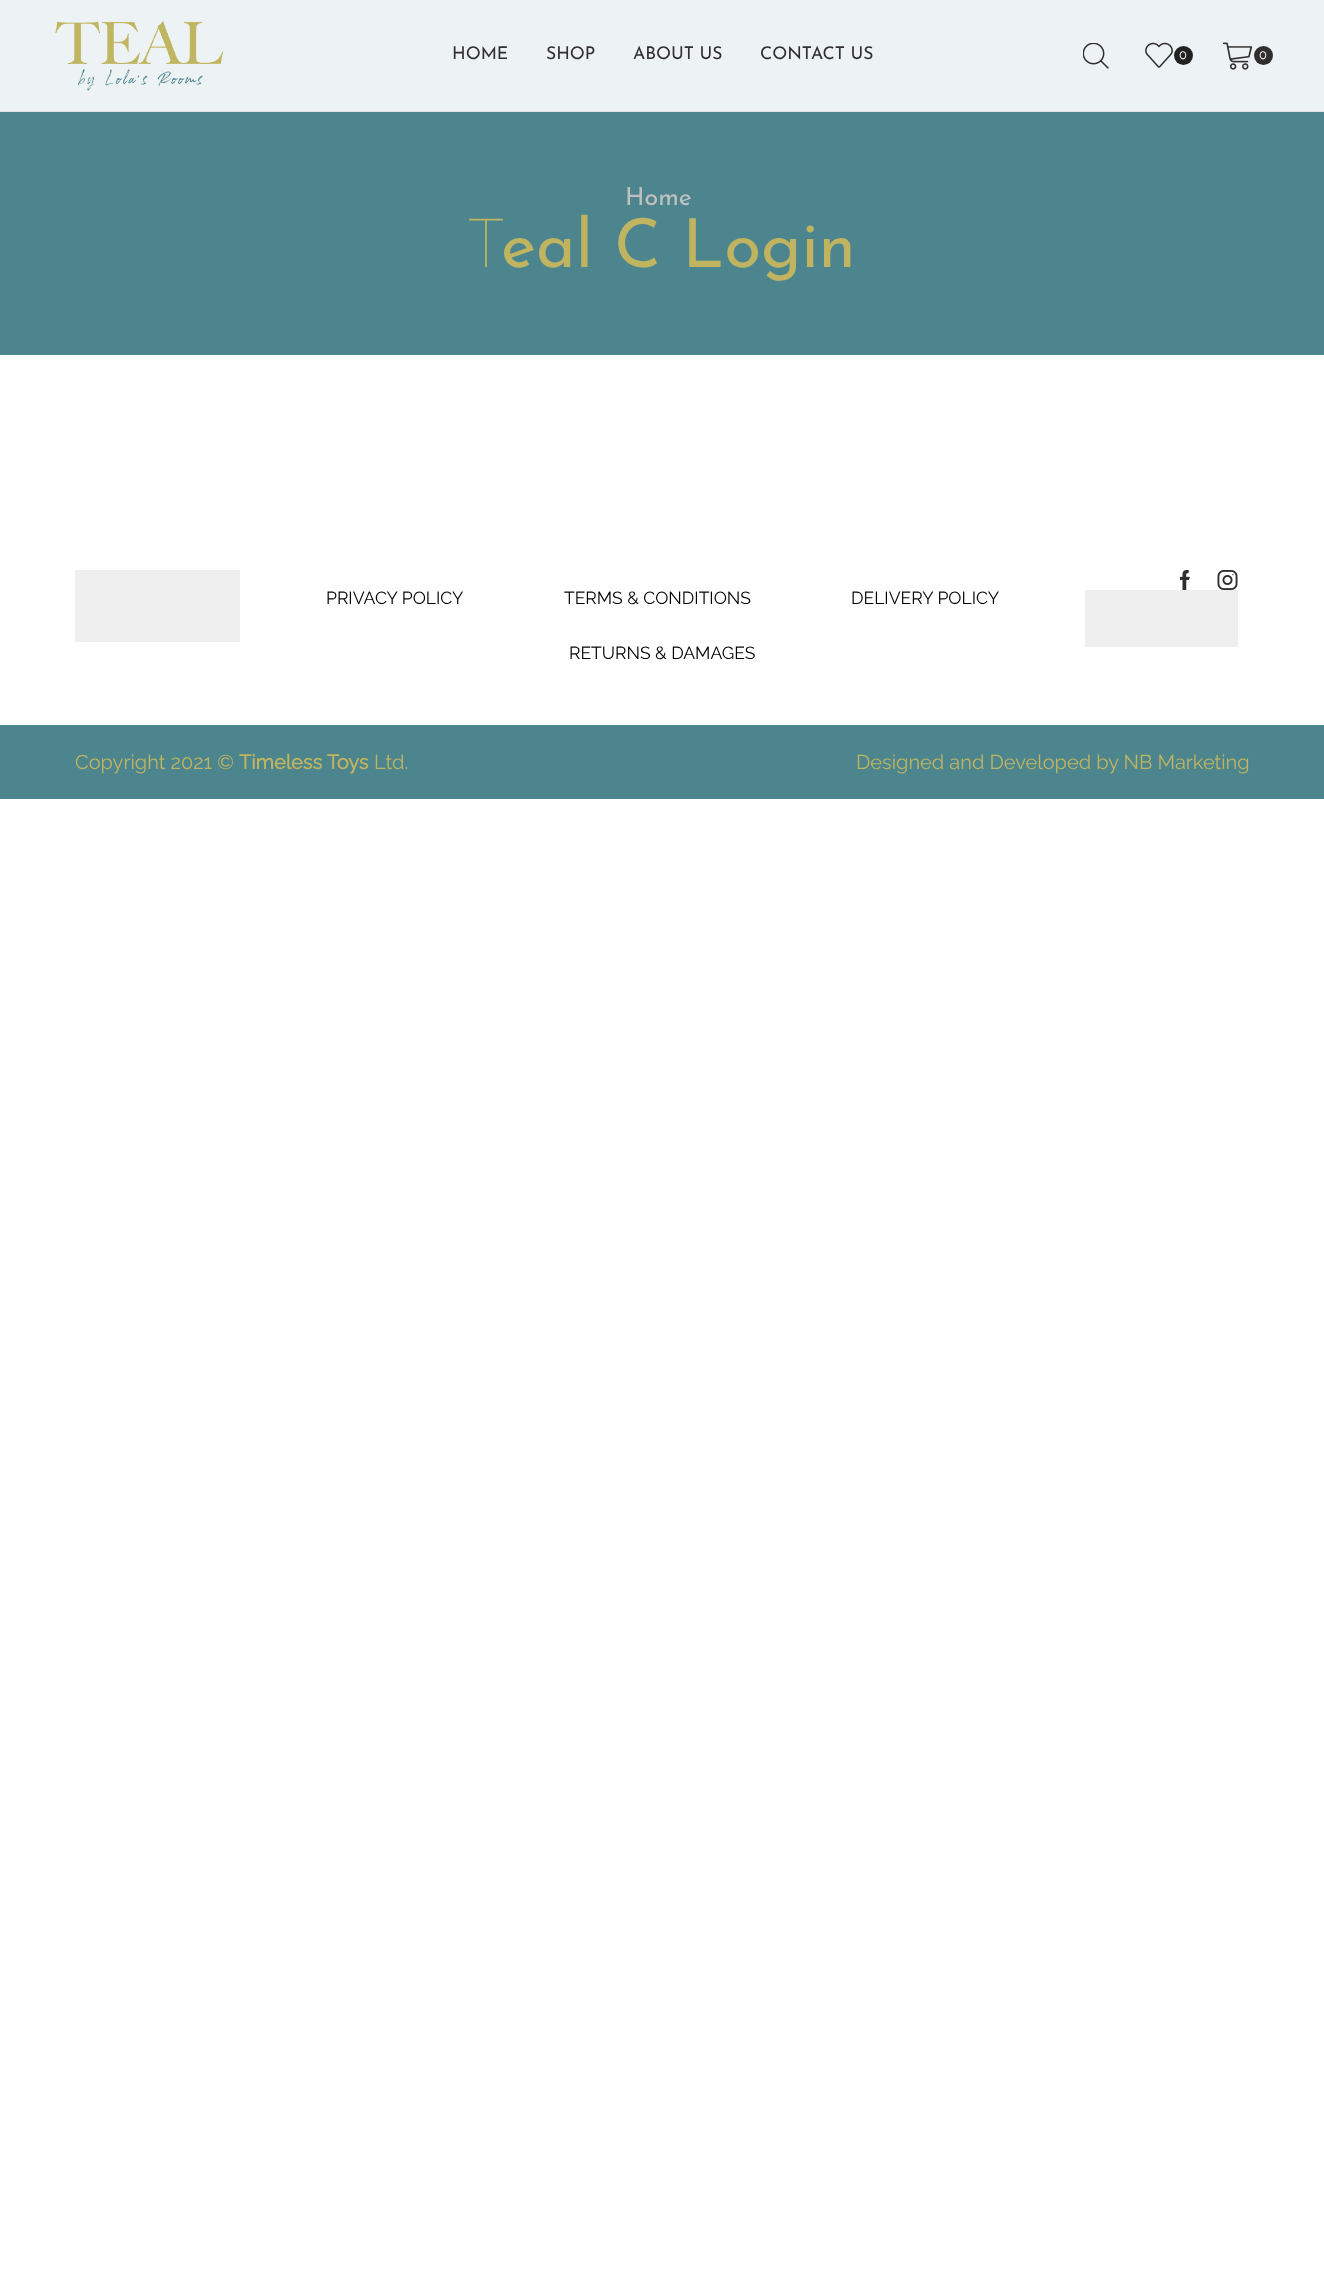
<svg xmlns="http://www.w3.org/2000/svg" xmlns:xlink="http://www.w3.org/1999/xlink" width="1324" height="2279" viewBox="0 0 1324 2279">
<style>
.cls-1{font:100 17.5px Josefin Sans;fill:#302e2e}
.cls-2{font:100 13px Raleway;fill:#ffffff}
.cls-3{font:100 25px Josefin Sans;fill:#c0c0c0}
.cls-4{font:100 67.5px Noto Sans;fill:#c0b460}
.cls-5{font:100 67.5px Josefin Sans;fill:#c0b460}
.cls-6{font:100 17.5px Raleway;fill:#000000}
.cls-7{font:100 20px Raleway;fill:#c0b460}
.cls-8{font:bold 20px Raleway;fill:#c0b460}
</style>
<rect width="100%" height="100%" fill="#ffffff"/>
<rect fill="#edf3f4" x="0" y="0" width="1324" height="111"/>
<rect fill="#e1e1e1" x="0" y="111" width="1324" height="1"/>
<image xlink:href="image0.png" x="55" y="21" width="169" height="70"/>
<image xlink:href="image1.png" x="1083" y="43" width="26" height="26"/>
<image xlink:href="image2.png" x="1145" y="42" width="28" height="26"/>
<circle fill="#222222" cx="1183.5" cy="55.5" r="9.5"/>
<image xlink:href="image3.png" x="1223" y="42" width="30" height="28"/>
<circle fill="#302e2e" cx="1263.5" cy="55.5" r="9.5"/>
<rect fill="#4c858e" x="0" y="112" width="1324" height="243"/>
<rect fill="#efefef" x="75" y="570" width="165" height="72"/>
<image xlink:href="image4.png" x="1180" y="570" width="10" height="20"/>
<image xlink:href="image5.png" x="1217" y="570" width="21" height="20"/>
<rect fill="#efefef" x="1085" y="590" width="153" height="57"/>
<rect fill="#4c858e" x="0" y="725" width="1324" height="74"/>
<text class="cls-1" x="452" y="59">HOME</text>
<text class="cls-1" x="546" y="59">SHOP</text>
<text class="cls-1" x="633" y="59">ABOUT US</text>
<text class="cls-1" x="760" y="59">CONTACT US</text>
<text class="cls-2" x="1179" y="59">0</text>
<text class="cls-2" x="1259" y="59">0</text>
<text class="cls-3" x="625" y="205">Home</text>
<text class="cls-4" x="469" y="267">T</text>
<text class="cls-5" x="501" y="267">eal C Login</text>
<text class="cls-6" x="326" y="604">PRIVACY POLICY</text>
<text class="cls-6" x="564" y="604">TERMS &amp; CONDITIONS</text>
<text class="cls-6" x="851" y="604">DELIVERY POLICY</text>
<text class="cls-6" x="569" y="659">RETURNS &amp; DAMAGES</text>
<text class="cls-7" x="75" y="769">Copyright 2021 ©</text>
<text class="cls-8" x="239" y="769">Timeless Toys</text>
<text class="cls-7" x="374" y="769">Ltd.</text>
<text class="cls-7" x="856" y="769">Designed and Developed by NB Marketing</text>
</svg>
